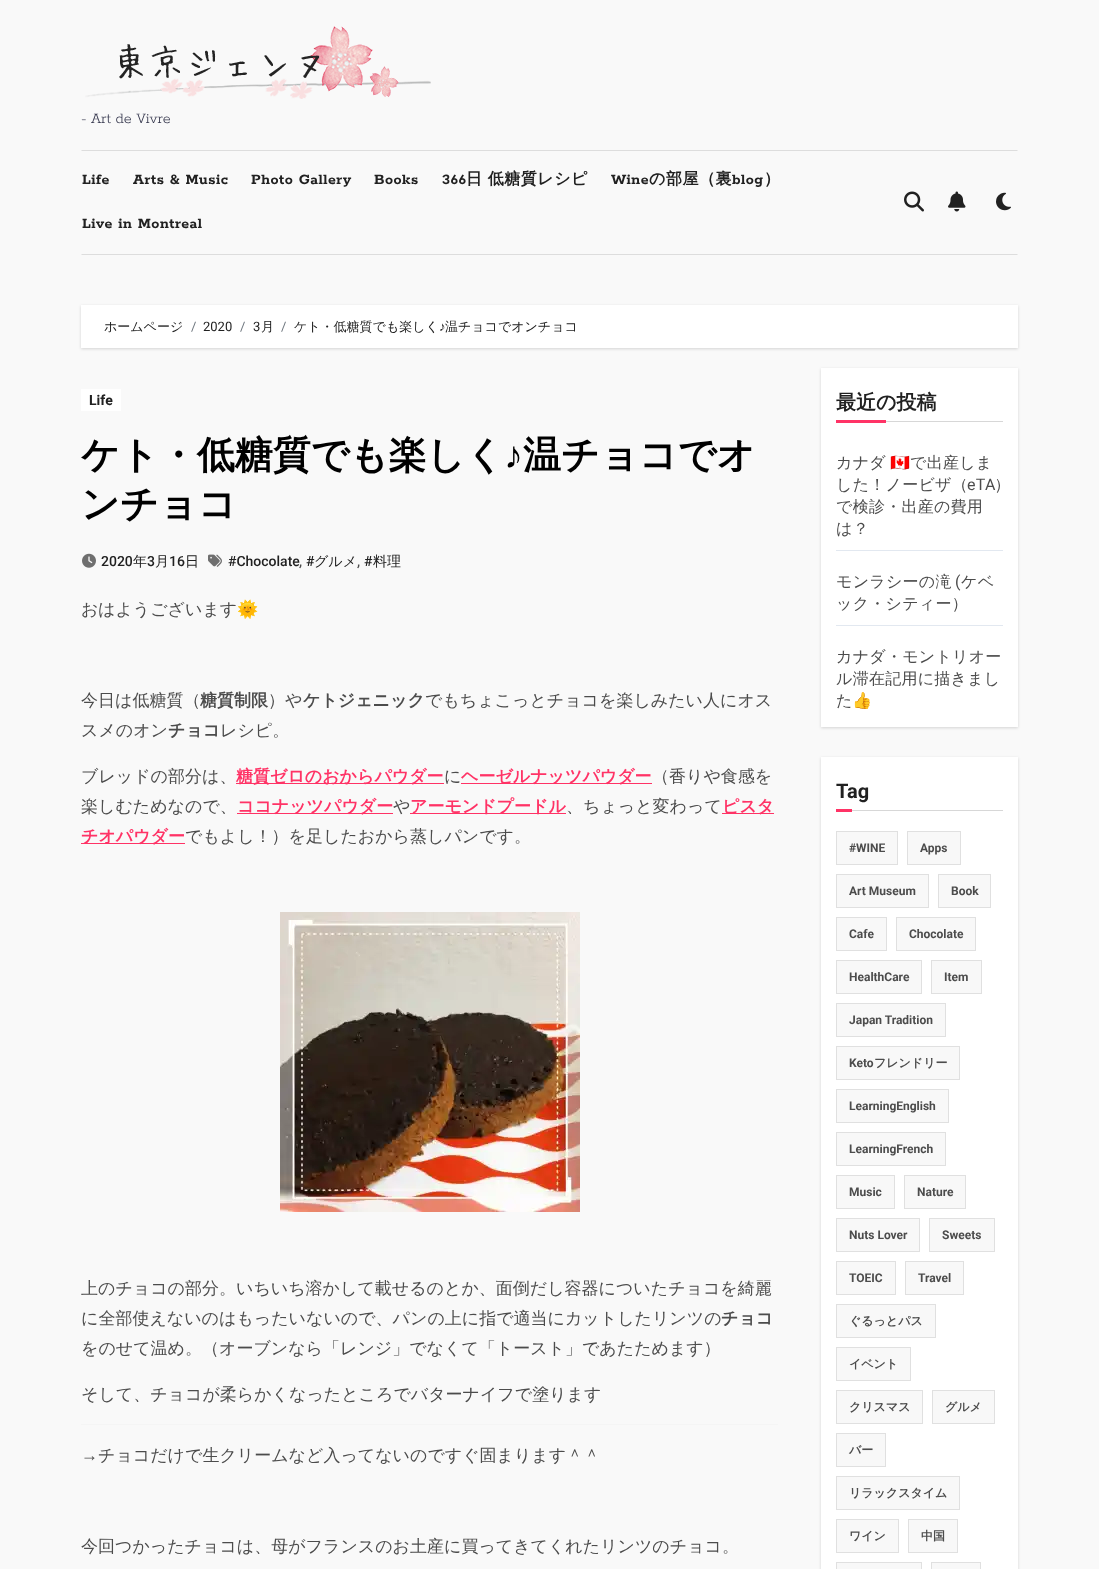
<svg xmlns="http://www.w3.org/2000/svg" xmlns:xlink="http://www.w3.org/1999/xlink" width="1099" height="1569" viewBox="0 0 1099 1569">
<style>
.cls-1{font:300 16px Rokkitt;fill:#34364c}
.cls-2{font:bold 16px Rokkitt;letter-spacing:0.5px;fill:#212121}
.cls-3{font:bold 16px WenQuanYi Zen Hei;letter-spacing:0.5px;fill:#212121}
.cls-4{font:500 13px WenQuanYi Zen Hei;fill:#212121}
.cls-5{font:13px Roboto;fill:#6c757d}
.cls-6{font:13px 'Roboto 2';fill:#212121}
.cls-7{font:13px Liberation Sans;fill:#212121}
.cls-8{font:bold 14px Roboto;fill:#212121}
.cls-9{font:bold 38px WenQuanYi Zen Hei;fill:#000000}
.cls-10{font:bold 38px Liberation Sans;fill:#000000}
.cls-11{font:500 14px Roboto;fill:#212121}
.cls-12{font:500 14px WenQuanYi Zen Hei;fill:#212121}
.cls-13{font:500 14px Roboto;fill:#4c4c4c}
.cls-14{font:17px Noto Sans;fill:#4c4c4c}
.cls-15{font:500 17px WenQuanYi Zen Hei;fill:#4c4c4c}
.cls-16{font:17px Noto Color Emoji;fill:#4c4c4c}
.cls-17{font:bold 17px WenQuanYi Zen Hei;fill:#4c4c4c}
.cls-18{font:bold 17px WenQuanYi Zen Hei;fill:#ff3366}
.cls-19{font:17px Liberation Sans;fill:#4c4c4c}
.cls-20{font:bold 20px WenQuanYi Zen Hei;fill:#212121}
.cls-21{font:500 16px WenQuanYi Zen Hei;letter-spacing:0.25px;fill:#4c4c4c}
.cls-22{font:16px Noto Color Emoji;letter-spacing:0.25px;fill:#4c4c4c}
.cls-23{font:16px 'Roboto 2';letter-spacing:0.25px;fill:#4c4c4c}
.cls-24{font:16px Roboto;letter-spacing:0.25px;fill:#4c4c4c}
.cls-25{font:bold 20px Roboto;fill:#212121}
.cls-26{font:bold 12px Roboto;fill:#4c4c4c}
.cls-27{font:bold 12px WenQuanYi Zen Hei;fill:#4c4c4c}
</style>
<rect width="100%" height="100%" fill="#f9f9f9"/>
<image xlink:href="image0.png" x="85" y="26" width="346" height="73"/>
<path fill="#dddddd" d="M81 150H1018L1017 151H82Z"/>
<path fill="#dddddd" d="M1018 255H81L82 254H1017Z"/>
<image xlink:href="image1.png" x="904" y="191" width="20" height="21"/>
<image xlink:href="image2.png" x="948" y="191" width="18" height="21"/>
<image xlink:href="image3.png" x="996" y="192" width="15" height="19"/>
<rect fill="#000000" fill-opacity="0.15" filter="blur(1.5px)" x="81" y="306" width="937" height="43"/>
<rect fill="#ffffff" x="81" y="305" width="937" height="43"/>
<rect fill="#ffffff" x="81" y="389" width="40" height="22"/>
<image xlink:href="image4.png" x="82" y="553" width="14" height="15"/>
<image xlink:href="image5.png" x="208" y="554" width="14" height="13"/>
<rect fill="#ff3366" x="236" y="783" width="208" height="1"/>
<rect fill="#ff3366" x="461" y="783" width="191" height="1"/>
<rect fill="#ff3366" x="237" y="813" width="156" height="1"/>
<rect fill="#ff3366" x="410" y="813" width="156" height="1"/>
<rect fill="#ff3366" x="722" y="813" width="52" height="1"/>
<rect fill="#ff3366" x="81" y="843" width="104" height="1"/>
<image xlink:href="image6.png" x="280" y="912" width="300" height="300"/>
<rect fill="#f5f5f5" x="81" y="1424" width="697" height="1"/>
<rect fill="#000000" fill-opacity="0.15" filter="blur(1.5px)" x="821" y="369" width="197" height="359"/>
<rect fill="#ffffff" x="821" y="368" width="197" height="359"/>
<rect fill="#d7d7d7" x="886" y="421" width="117" height="1"/>
<rect fill="#ff3366" x="836" y="420" width="50" height="3"/>
<rect fill="#e2e8f0" x="836" y="550" width="167" height="1"/>
<rect fill="#e2e8f0" x="836" y="625" width="167" height="1"/>
<rect fill="#000000" fill-opacity="0.15" filter="blur(1.5px)" x="821" y="758" width="197" height="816"/>
<rect fill="#ffffff" x="821" y="757" width="197" height="812"/>
<rect fill="#d7d7d7" x="852" y="810" width="151" height="1"/>
<rect fill="#ff3366" x="836" y="809" width="16" height="3"/>
<rect fill="#f8f8f8" stroke="#e0e0e0" x="836.5" y="831.5" width="61" height="33"/>
<rect fill="#f8f8f8" stroke="#e0e0e0" x="907.5" y="831.5" width="53" height="33"/>
<rect fill="#f8f8f8" stroke="#e0e0e0" x="836.5" y="874.5" width="92" height="33"/>
<rect fill="#f8f8f8" stroke="#e0e0e0" x="938.5" y="874.5" width="52" height="33"/>
<rect fill="#f8f8f8" stroke="#e0e0e0" x="836.5" y="917.5" width="50" height="33"/>
<rect fill="#f8f8f8" stroke="#e0e0e0" x="896.5" y="917.5" width="79" height="33"/>
<rect fill="#f8f8f8" stroke="#e0e0e0" x="836.5" y="960.5" width="85" height="33"/>
<rect fill="#f8f8f8" stroke="#e0e0e0" x="931.5" y="960.5" width="50" height="33"/>
<rect fill="#f8f8f8" stroke="#e0e0e0" x="836.5" y="1003.5" width="109" height="33"/>
<rect fill="#f8f8f8" stroke="#e0e0e0" x="836.5" y="1046.5" width="123" height="33"/>
<rect fill="#f8f8f8" stroke="#e0e0e0" x="836.5" y="1089.5" width="112" height="33"/>
<rect fill="#f8f8f8" stroke="#e0e0e0" x="836.5" y="1132.5" width="109" height="33"/>
<rect fill="#f8f8f8" stroke="#e0e0e0" x="836.5" y="1175.5" width="58" height="33"/>
<rect fill="#f8f8f8" stroke="#e0e0e0" x="904.5" y="1175.5" width="61" height="33"/>
<rect fill="#f8f8f8" stroke="#e0e0e0" x="836.5" y="1218.5" width="83" height="33"/>
<rect fill="#f8f8f8" stroke="#e0e0e0" x="929.5" y="1218.5" width="65" height="33"/>
<rect fill="#f8f8f8" stroke="#e0e0e0" x="836.5" y="1261.5" width="59" height="33"/>
<rect fill="#f8f8f8" stroke="#e0e0e0" x="905.5" y="1261.5" width="58" height="33"/>
<rect fill="#f8f8f8" stroke="#e0e0e0" x="836.5" y="1304.5" width="99" height="33"/>
<rect fill="#f8f8f8" stroke="#e0e0e0" x="836.5" y="1347.5" width="74" height="33"/>
<rect fill="#f8f8f8" stroke="#e0e0e0" x="836.5" y="1390.5" width="86" height="33"/>
<rect fill="#f8f8f8" stroke="#e0e0e0" x="932.5" y="1390.5" width="62" height="33"/>
<rect fill="#f8f8f8" stroke="#e0e0e0" x="836.5" y="1433.5" width="49" height="33"/>
<rect fill="#f8f8f8" stroke="#e0e0e0" x="836.5" y="1476.5" width="123" height="33"/>
<rect fill="#f8f8f8" stroke="#e0e0e0" x="836.5" y="1519.5" width="62" height="33"/>
<rect fill="#f8f8f8" stroke="#e0e0e0" x="908.5" y="1519.5" width="49" height="33"/>
<rect fill="#f8f8f8" stroke="#e0e0e0" x="836.5" y="1562.5" width="85" height="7"/>
<rect fill="#f8f8f8" stroke="#e0e0e0" x="931.5" y="1562.5" width="49" height="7"/>
<text class="cls-1" x="81" y="123">- Art de Vivre</text>
<text class="cls-2" x="82" y="184">Life</text>
<text class="cls-2" x="133" y="184">Arts &amp; Music</text>
<text class="cls-2" x="251" y="184">Photo Gallery</text>
<text class="cls-2" x="374" y="184">Books</text>
<text class="cls-2" x="442" y="184">366</text>
<text class="cls-3" x="466" y="184">日 低糖質レシピ</text>
<text class="cls-2" x="611" y="184">Wine</text>
<text class="cls-3" x="649" y="184">の部屋（裏</text>
<text class="cls-2" x="732" y="184">blog</text>
<text class="cls-3" x="764" y="184">）</text>
<text class="cls-2" x="82" y="228">Live in Montreal</text>
<text class="cls-4" x="104" y="331">ホームページ</text>
<text class="cls-5" x="191" y="331">/</text>
<text class="cls-6" x="203" y="331">2020</text>
<text class="cls-5" x="240" y="331">/</text>
<text class="cls-6" x="253" y="331">3</text>
<text class="cls-4" x="261" y="331">月</text>
<text class="cls-5" x="281" y="331">/</text>
<text class="cls-4" x="294" y="331">ケト・低糖質でも楽しく</text>
<text class="cls-7" x="439" y="331">♪</text>
<text class="cls-4" x="445" y="331">温チョコでオンチョコ</text>
<text class="cls-8" x="89" y="405">Life</text>
<text class="cls-9" x="81" y="468">ケト・低糖質でも楽しく</text>
<text class="cls-10" x="504" y="468">♪</text>
<text class="cls-9" x="523" y="468">温チョコでオ</text>
<text class="cls-9" x="81" y="517">ンチョコ</text>
<text class="cls-11" x="101" y="566">2020</text>
<text class="cls-12" x="133" y="566">年</text>
<text class="cls-11" x="147" y="566">3</text>
<text class="cls-12" x="155" y="566">月</text>
<text class="cls-11" x="169" y="566">16</text>
<text class="cls-12" x="185" y="566">日</text>
<text class="cls-11" x="228" y="566">#Chocolate</text>
<text class="cls-11" x="306" y="566">#</text>
<text class="cls-12" x="314" y="566">グルメ</text>
<text class="cls-11" x="364" y="566">#</text>
<text class="cls-12" x="373" y="566">料理</text>
<text class="cls-13" x="299" y="566">,</text>
<text class="cls-13" x="357" y="566">,</text>
<text class="cls-14" x="81" y="615">お</text>
<text class="cls-15" x="98" y="615">はようございます</text>
<text class="cls-16" x="237" y="615">🌞</text>
<text class="cls-15" x="81" y="706">今日は低糖質（</text>
<text class="cls-17" x="200" y="706">糖質制限</text>
<text class="cls-15" x="268" y="706">）や</text>
<text class="cls-17" x="303" y="706">ケトジェニック</text>
<text class="cls-15" x="425" y="706">でもちょこっとチョコを楽しみたい人にオス</text>
<text class="cls-15" x="81" y="736">スメのオン</text>
<text class="cls-17" x="168" y="736">チョコ</text>
<text class="cls-15" x="220" y="736">レシピ。</text>
<text class="cls-15" x="81" y="782">ブレッドの部分は、</text>
<text class="cls-18" x="236" y="782">糖質ゼロのおからパウダー</text>
<text class="cls-15" x="444" y="782">に</text>
<text class="cls-18" x="461" y="782">ヘーゼルナッツパウダー</text>
<text class="cls-15" x="652" y="782">（香りや食感を</text>
<text class="cls-15" x="81" y="812">楽しむためなので、</text>
<text class="cls-18" x="237" y="812">ココナッツパウダー</text>
<text class="cls-15" x="393" y="812">や</text>
<text class="cls-18" x="410" y="812">アーモンドプードル</text>
<text class="cls-15" x="566" y="812">、ちょっと変わって</text>
<text class="cls-18" x="722" y="812">ピスタ</text>
<text class="cls-18" x="81" y="842">チオパウダー</text>
<text class="cls-15" x="185" y="842">でもよし！）を足したおから蒸しパンです。</text>
<text class="cls-15"><tspan x="81" y="1294">上のチョコの部分。いちいち溶かして載せるのとか、面倒だし容器についたチョコを綺麗</tspan><tspan x="81" y="1324">に全部使えないのはもったいないので、パンの上に指で適当にカットしたリンツの</tspan></text>
<text class="cls-17" x="721" y="1324">チョコ</text>
<text class="cls-15" x="81" y="1354">をのせて温め。（オーブンなら「レンジ」でなくて「トースト」であたためます）</text>
<text class="cls-15" x="81" y="1400">そして、チョコが柔らかくなったところでバターナイフで塗ります</text>
<text class="cls-19" x="81" y="1461">→</text>
<text class="cls-15" x="98" y="1461">チョコだけで生クリームなど入ってないのですぐ固まります＾＾</text>
<text class="cls-15" x="81" y="1552">今回つかったチョコは、母がフランスのお土産に買ってきてくれたリンツのチョコ。</text>
<text class="cls-20" x="836" y="409">最近の投稿</text>
<text class="cls-21" x="836" y="468">カナダ</text>
<text class="cls-22" x="890" y="468">🇨🇦</text>
<text class="cls-21" x="910" y="468">で出産しま</text>
<text class="cls-21" x="836" y="490">した！ノービザ（</text>
<text class="cls-23" x="967" y="490">eTA</text>
<text class="cls-21" x="996" y="490">)</text>
<text class="cls-21"><tspan x="836" y="512">で検診・出産の費用</tspan><tspan x="836" y="534">は？</tspan></text>
<text class="cls-21" x="836" y="587">モンラシーの滝</text>
<text class="cls-24" x="955" y="587">(</text>
<text class="cls-21" x="961" y="587">ケベ</text>
<text class="cls-21" x="836" y="609">ック・シティー）</text>
<text class="cls-21"><tspan x="836" y="662">カナダ・モントリオー</tspan><tspan x="836" y="684">ル滞在記用に描きまし</tspan><tspan x="836" y="706">た</tspan></text>
<text class="cls-22" x="852" y="706">👍</text>
<text class="cls-25" x="836" y="798">Tag</text>
<text class="cls-26" x="849" y="852">#WINE</text>
<text class="cls-26" x="920" y="852">Apps</text>
<text class="cls-26" x="849" y="895">Art Museum</text>
<text class="cls-26" x="951" y="895">Book</text>
<text class="cls-26" x="849" y="938">Cafe</text>
<text class="cls-26" x="909" y="938">Chocolate</text>
<text class="cls-26" x="849" y="981">HealthCare</text>
<text class="cls-26" x="944" y="981">Item</text>
<text class="cls-26" x="849" y="1024">Japan Tradition</text>
<text class="cls-26" x="849" y="1067">Keto</text>
<text class="cls-27" x="874" y="1067">フレンドリー</text>
<text class="cls-26" x="849" y="1110">LearningEnglish</text>
<text class="cls-26" x="849" y="1153">LearningFrench</text>
<text class="cls-26" x="849" y="1196">Music</text>
<text class="cls-26" x="917" y="1196">Nature</text>
<text class="cls-26" x="849" y="1239">Nuts Lover</text>
<text class="cls-26" x="942" y="1239">Sweets</text>
<text class="cls-26" x="849" y="1282">TOEIC</text>
<text class="cls-26" x="918" y="1282">Travel</text>
<text class="cls-27" x="849" y="1325">ぐるっとパス</text>
<text class="cls-27" x="849" y="1368">イベント</text>
<text class="cls-27" x="849" y="1411">クリスマス</text>
<text class="cls-27" x="945" y="1411">グルメ</text>
<text class="cls-27" x="849" y="1454">バー</text>
<text class="cls-27" x="849" y="1497">リラックスタイム</text>
<text class="cls-27" x="849" y="1540">ワイン</text>
<text class="cls-27" x="921" y="1540">中国</text>
</svg>
